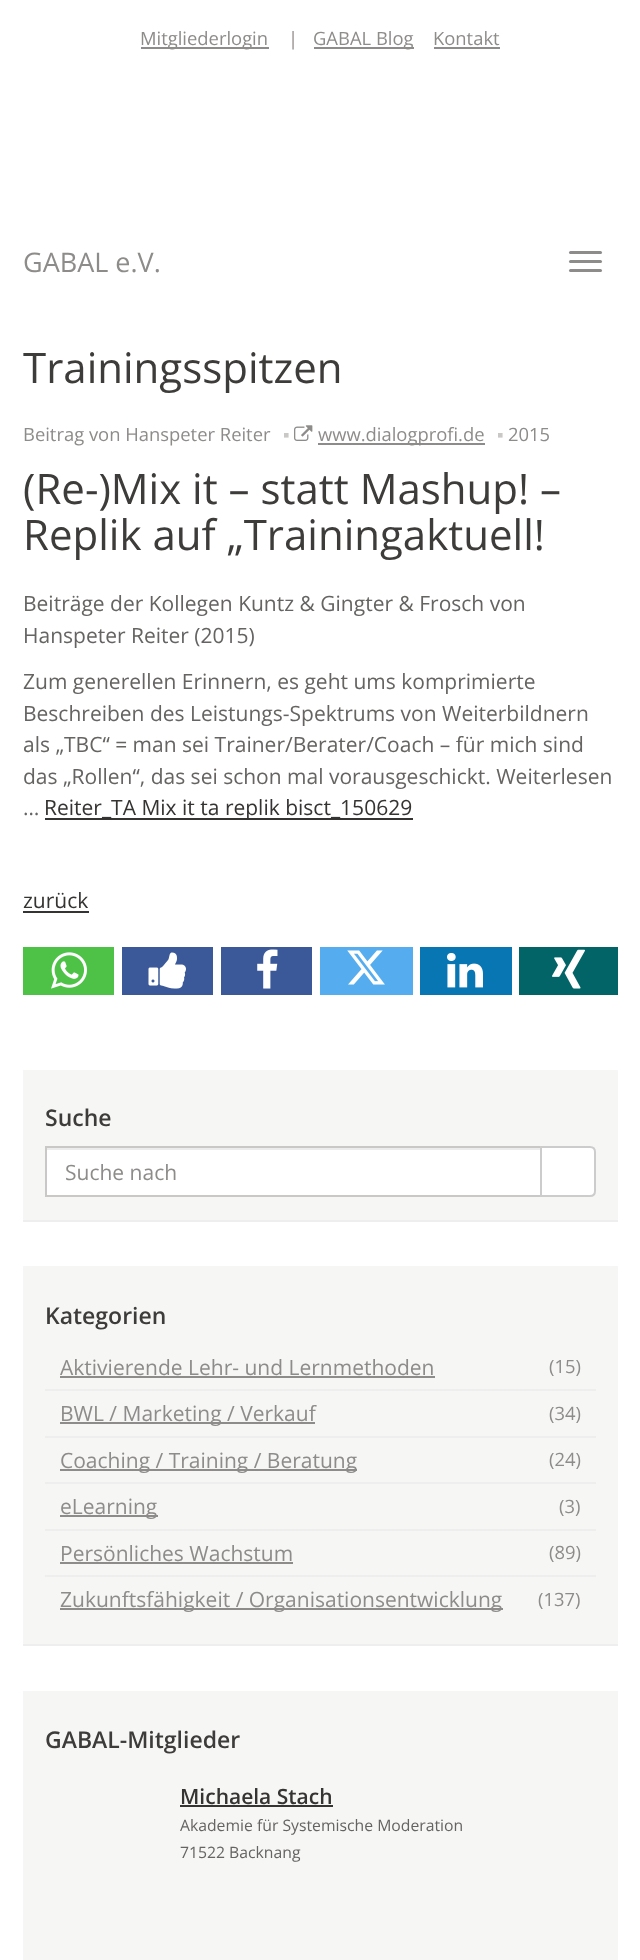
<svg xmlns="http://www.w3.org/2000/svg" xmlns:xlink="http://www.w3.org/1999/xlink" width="640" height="1960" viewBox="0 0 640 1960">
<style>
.cls-1{font:18.4px Open Sans;fill:#8e8c8a}
.cls-2{font:27px Open Sans;fill:#8e8c8a}
.cls-3{font:42px Open Sans;fill:#3e3c3a}
.cls-4{font:18.4px Liberation Sans;fill:#cac8c6}
.cls-5{font:21px Open Sans;fill:#666462}
.cls-6{font:21px Open Sans;fill:#363432}
.cls-7{font:600 23px Open Sans;fill:#3e3c3a}
.cls-8{font:21px Open Sans;fill:#8e8c8a}
.cls-9{font:600 21px Open Sans;fill:#363432}
.cls-10{font:15.75px Open Sans;fill:#666462}
</style>
<rect width="100%" height="100%" fill="#ffffff"/>
<rect fill="#8e8c8a" x="141" y="47" width="128" height="2"/>
<rect fill="#8e8c8a" x="314" y="47" width="100" height="2"/>
<rect fill="#8e8c8a" x="434" y="47" width="66" height="2"/>
<rect fill="#8e8c8a" x="569" y="251" width="33" height="3" rx="1.5"/>
<rect fill="#8e8c8a" x="569" y="260" width="33" height="3" rx="1.5"/>
<rect fill="#8e8c8a" x="569" y="269" width="33" height="3" rx="1.5"/>
<image xlink:href="image0.png" x="294" y="425" width="19" height="16"/>
<rect fill="#8e8c8a" x="318" y="443" width="167" height="2"/>
<rect fill="#363432" x="45" y="818" width="368" height="2"/>
<rect fill="#363432" x="23" y="911" width="66" height="2"/>
<rect fill="#4dc247" x="23" y="947" width="91" height="48"/>
<image xlink:href="image1.png" x="51" y="952" width="36" height="37"/>
<rect fill="#3b5998" x="122" y="947" width="91" height="48"/>
<image xlink:href="image2.png" x="148" y="952" width="38" height="37"/>
<rect fill="#3b5998" x="221" y="947" width="91" height="48"/>
<image xlink:href="image3.png" x="257" y="949" width="21" height="40"/>
<rect fill="#55acee" x="320" y="947" width="93" height="48"/>
<image xlink:href="image4.png" x="347" y="950" width="38" height="35"/>
<rect fill="#0976b4" x="420" y="947" width="92" height="48"/>
<image xlink:href="image5.png" x="447" y="953" width="36" height="35"/>
<rect fill="#026466" x="519" y="947" width="99" height="48"/>
<image xlink:href="image6.png" x="552" y="949" width="33" height="40"/>
<rect fill="#f6f6f5" x="23" y="1070" width="595" height="150"/>
<rect fill="#eeeeee" x="23" y="1220" width="595" height="2"/>
<rect fill="#ffffff" x="47" y="1150" width="493" height="45"/>
<rect fill="#ececec" x="47" y="1148" width="493" height="2"/>
<rect fill="none" stroke="#cac8c6" stroke-width="2" x="46" y="1147" width="495" height="49"/>
<path fill="#ffffff" stroke="#cccccc" stroke-width="2" d="M541 1147H590C593 1147 595 1149 595 1152V1191C595 1194 593 1196 590 1196H541Z"/>
<rect fill="#f6f6f5" x="23" y="1266" width="595" height="378"/>
<rect fill="#eeeeee" x="23" y="1644" width="595" height="2"/>
<rect fill="#eeeeee" x="45" y="1389" width="551" height="2"/>
<rect fill="#8e8c8a" x="60" y="1376" width="375" height="2"/>
<rect fill="#eeeeee" x="45" y="1436" width="551" height="2"/>
<rect fill="#8e8c8a" x="60" y="1422" width="255" height="2"/>
<rect fill="#eeeeee" x="45" y="1482" width="551" height="2"/>
<rect fill="#8e8c8a" x="60" y="1469" width="297" height="2"/>
<rect fill="#eeeeee" x="45" y="1529" width="551" height="2"/>
<rect fill="#8e8c8a" x="60" y="1515" width="98" height="2"/>
<rect fill="#eeeeee" x="45" y="1575" width="551" height="2"/>
<rect fill="#8e8c8a" x="60" y="1562" width="233" height="2"/>
<rect fill="#8e8c8a" x="60" y="1608" width="443" height="2"/>
<rect fill="#f6f6f5" x="23" y="1691" width="595" height="269"/>
<rect fill="#363432" x="180" y="1805" width="153" height="2"/>
<text class="cls-1" x="140" y="45">Mitgliederlogin</text>
<text class="cls-1" x="288" y="45">|</text>
<text class="cls-1" x="313" y="45">GABAL Blog</text>
<text class="cls-1" x="433" y="45">Kontakt</text>
<text class="cls-2" x="23" y="272">GABAL e.V.</text>
<text class="cls-3" x="23" y="383">Trainingsspitzen</text>
<text class="cls-1" x="23" y="441">Beitrag von Hanspeter Reiter</text>
<text class="cls-4" x="283" y="441">▪</text>
<text class="cls-1" x="318" y="441">www.dialogprofi.de</text>
<text class="cls-4" x="497" y="441">▪</text>
<text class="cls-1" x="508" y="441">2015</text>
<text class="cls-3"><tspan x="23" y="504">(Re-)Mix it – statt Mashup! –</tspan><tspan x="23" y="550">Replik auf „Trainingaktuell!</tspan></text>
<text class="cls-5"><tspan x="23" y="611">Beiträge der Kollegen Kuntz &amp; Gingter &amp; Frosch von</tspan><tspan x="23" y="643">Hanspeter Reiter (2015)</tspan></text>
<text class="cls-5"><tspan x="23" y="689">Zum generellen Erinnern, es geht ums komprimierte</tspan><tspan x="23" y="721">Beschreiben des Leistungs-Spektrums von Weiterbildnern</tspan><tspan x="23" y="752">als „TBC“ = man sei Trainer/Berater/Coach – für mich sind</tspan><tspan x="23" y="784">das „Rollen“, das sei schon mal vorausgeschickt. Weiterlesen</tspan><tspan x="23" y="815">…</tspan></text>
<text class="cls-6" x="44" y="815">Reiter_TA Mix it ta replik bisct_150629</text>
<text class="cls-6" x="23" y="908">zurück</text>
<text class="cls-7" x="45" y="1126">Suche</text>
<text class="cls-8" x="65" y="1180">Suche nach</text>
<text class="cls-7" x="45" y="1324">Kategorien</text>
<text class="cls-8" x="60" y="1375">Aktivierende Lehr- und Lernmethoden</text>
<text class="cls-1" x="549" y="1373">(15)</text>
<text class="cls-8" x="60" y="1421">BWL / Marketing / Verkauf</text>
<text class="cls-1" x="549" y="1420">(34)</text>
<text class="cls-8" x="60" y="1468">Coaching / Training / Beratung</text>
<text class="cls-1" x="549" y="1466">(24)</text>
<text class="cls-8" x="60" y="1514">eLearning</text>
<text class="cls-1" x="559" y="1513">(3)</text>
<text class="cls-8" x="60" y="1561">Persönliches Wachstum</text>
<text class="cls-1" x="549" y="1559">(89)</text>
<text class="cls-8" x="60" y="1607">Zukunftsfähigkeit / Organisationsentwicklung</text>
<text class="cls-1" x="538" y="1606">(137)</text>
<text class="cls-7" x="45" y="1748">GABAL-Mitglieder</text>
<text class="cls-9" x="180" y="1804">Michaela Stach</text>
<text class="cls-10"><tspan x="180" y="1831">Akademie für Systemische Moderation</tspan><tspan x="180" y="1858">71522 Backnang</tspan></text>
</svg>
